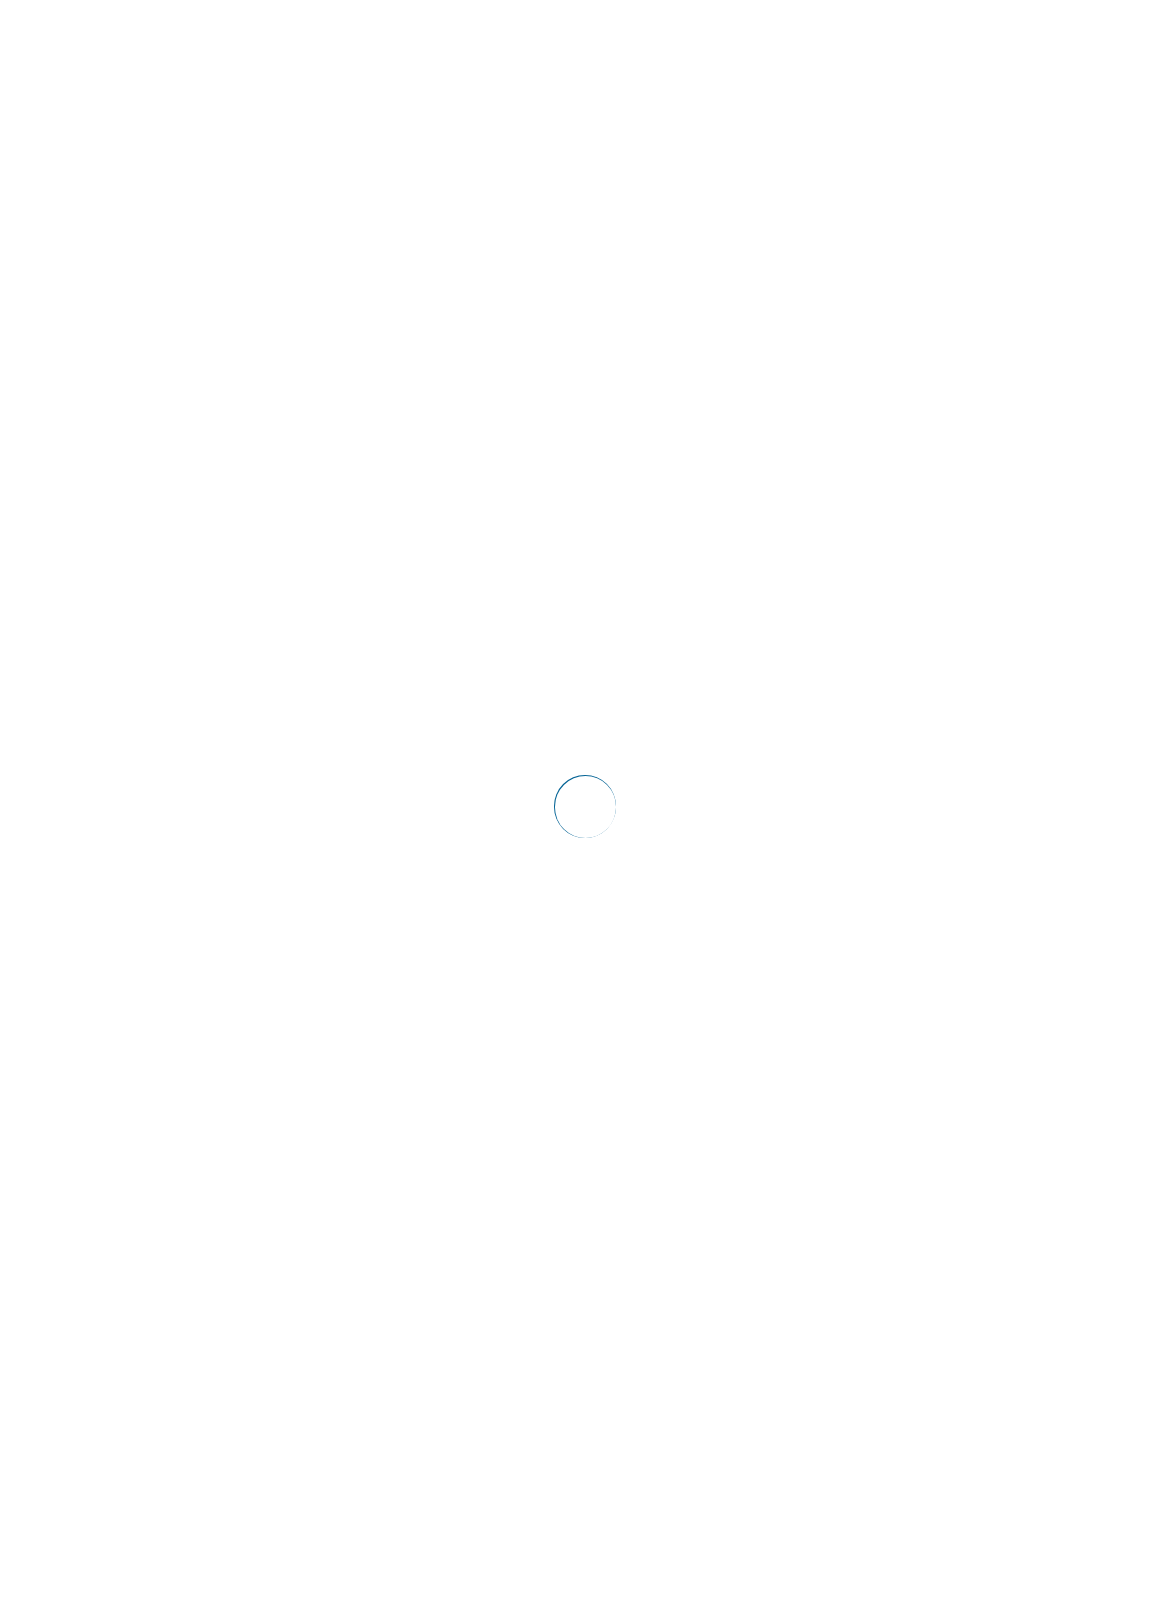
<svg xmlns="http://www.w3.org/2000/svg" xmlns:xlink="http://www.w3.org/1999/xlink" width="1170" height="1612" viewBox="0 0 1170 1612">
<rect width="100%" height="100%" fill="#ffffff"/>
<rect fill="#036395" x="554" y="775" width="62" height="63" rx="31"/>
<rect fill="#ffffff" x="555" y="776" width="61" height="62" rx="30.5"/>
</svg>
